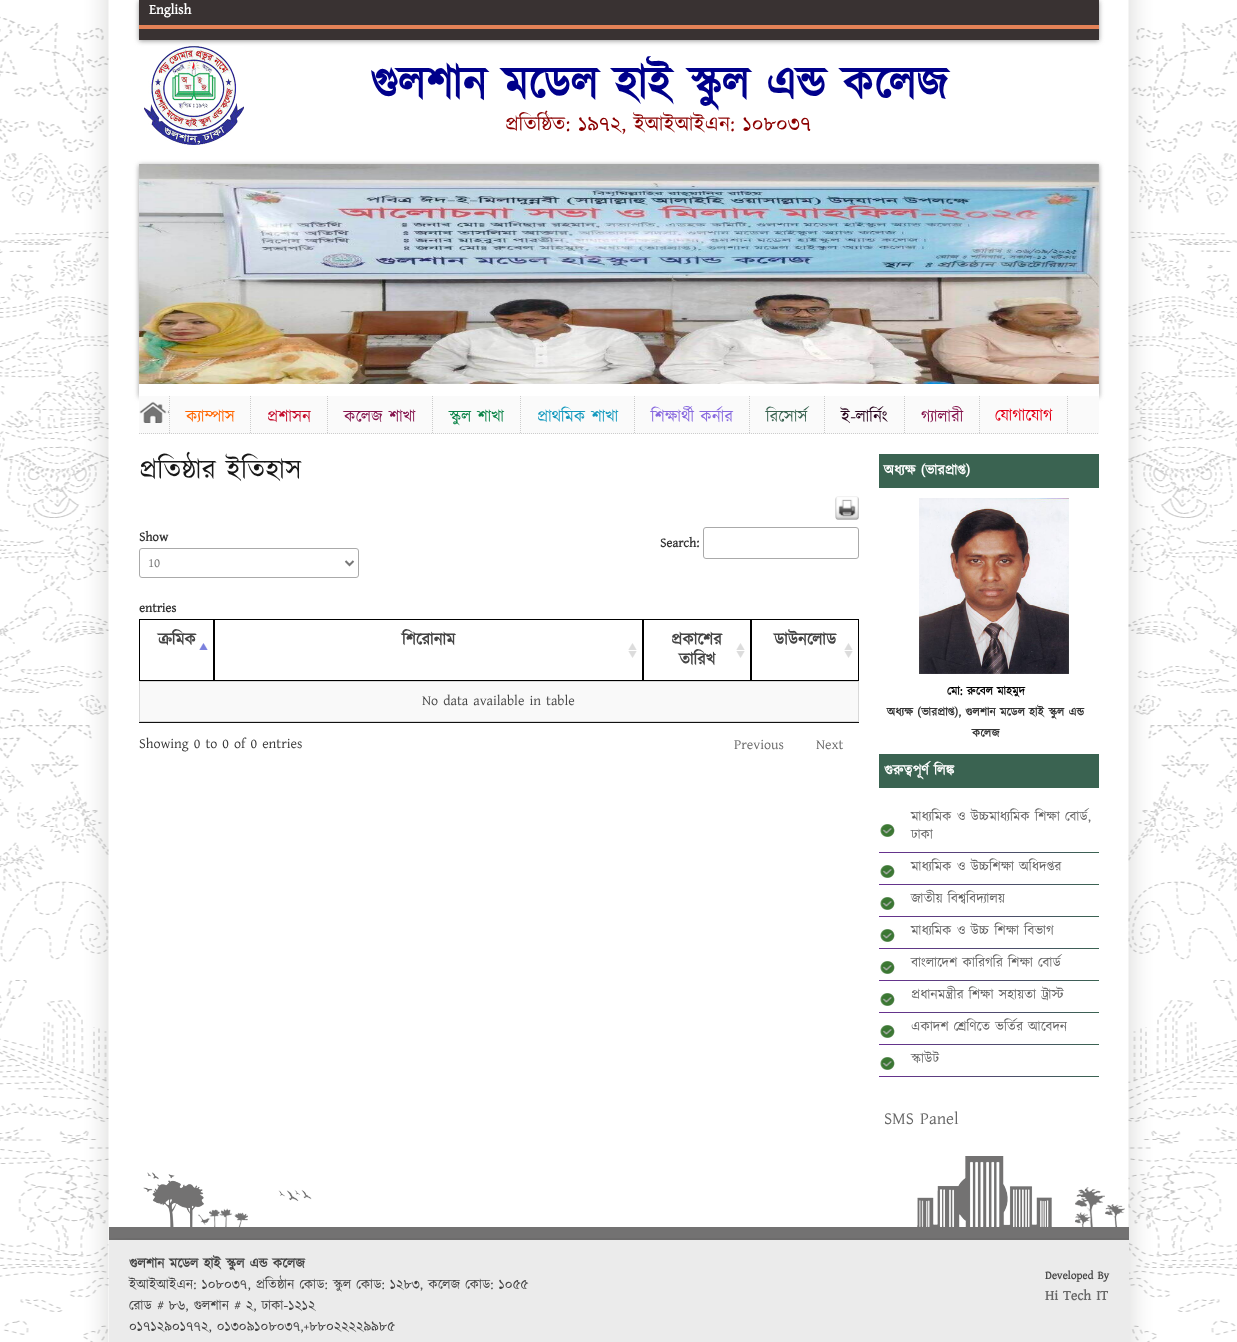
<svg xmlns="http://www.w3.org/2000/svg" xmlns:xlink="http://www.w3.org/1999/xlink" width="1237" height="1342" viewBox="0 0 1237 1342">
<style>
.cls-1{font:bold 14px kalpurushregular;fill:#ffffff}
.cls-2{font:bold 46px kalpurushregular;fill:#00008b}
.cls-3{font:21px kalpurushregular;fill:#8b0000}
.cls-4{font:17px kalpurushregular;fill:#ff6600}
.cls-5{font:17px kalpurushregular;fill:#c40a2a}
.cls-6{font:17px kalpurushregular;fill:#84154d}
.cls-7{font:17px kalpurushregular;fill:#098346}
.cls-8{font:17px kalpurushregular;fill:#1399be}
.cls-9{font:17px kalpurushregular;fill:#8768de}
.cls-10{font:17px kalpurushregular;fill:#3a6351}
.cls-11{font:17px kalpurushregular;fill:#26001b}
.cls-12{font:17px kalpurushregular;fill:#e40017}
.cls-13{font:28px kalpurushregular;fill:#181818}
.cls-14{font:bold 13px kalpurushregular;fill:#333333}
.cls-15{font:13px kalpurushregular;fill:#777777}
.cls-16{font:bold 17px kalpurushregular;fill:#444444}
.cls-17{font:14px kalpurushregular;fill:#444444}
.cls-18{font:14px kalpurushregular;fill:#333333}
.cls-19{font:14px kalpurushregular;fill:#666666}
.cls-20{font:bold 14.5px kalpurushregular;fill:#ffffff}
.cls-21{font:bold 12px kalpurushregular;fill:#000000}
.cls-22{font:bold 12px kalpurushregular;fill:#333333}
.cls-23{font:17px kalpurushregular;fill:#666666}
.cls-24{font:bold 14px kalpurushregular;fill:#444444}
.cls-25{font:bold 11.25px kalpurushregular;fill:#444444}
.cls-26{font:bold 14px kalpurushregular;fill:#666666}
</style>
<defs>
<clipPath id="clip1"><path d="M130 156H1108V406H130ZM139 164H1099V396H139Z" clip-rule="evenodd"/></clipPath>
</defs>
<rect width="100%" height="100%" fill="#ffffff"/>
<image xlink:href="image0.png" x="0" y="0" width="1237" height="1342"/>
<rect fill="#999999" filter="blur(2.5px)" x="139" y="1" width="960" height="40"/>
<rect fill="#393232" x="139" y="0" width="960" height="40"/>
<rect fill="#e48257" x="139" y="25" width="960" height="4"/>
<image xlink:href="image1.png" x="144" y="46" width="100" height="99"/>
<g clip-path="url(#clip1)">
<rect fill="#999999" filter="blur(2.5px)" x="139" y="165" width="960" height="232"/>
</g>
<image xlink:href="image2.png" x="139" y="164" width="960" height="220"/>
<rect fill="#fafafa" x="139" y="396" width="960" height="38"/>
<path fill="none" stroke="#cccccc" stroke-dasharray="1 1" d="M139 433.5H1099"/>
<path fill="none" stroke="#cccccc" stroke-dasharray="1 1" d="M169.5 396V433"/>
<image xlink:href="image3.png" x="139" y="401" width="30" height="22"/>
<path fill="none" stroke="#cccccc" stroke-dasharray="1 1" d="M250.5 396V433"/>
<path fill="none" stroke="#cccccc" stroke-dasharray="1 1" d="M327.5 396V433"/>
<path fill="none" stroke="#cccccc" stroke-dasharray="1 1" d="M432.5 396V433"/>
<path fill="none" stroke="#cccccc" stroke-dasharray="1 1" d="M520.5 396V433"/>
<path fill="none" stroke="#cccccc" stroke-dasharray="1 1" d="M634.5 396V433"/>
<path fill="none" stroke="#cccccc" stroke-dasharray="1 1" d="M749.5 396V433"/>
<path fill="none" stroke="#cccccc" stroke-dasharray="1 1" d="M824.5 396V433"/>
<path fill="none" stroke="#cccccc" stroke-dasharray="1 1" d="M904.5 396V433"/>
<path fill="none" stroke="#cccccc" stroke-dasharray="1 1" d="M979.5 396V433"/>
<path fill="none" stroke="#cccccc" stroke-dasharray="1 1" d="M1067.5 396V433"/>
<image xlink:href="image4.png" x="835" y="496" width="24" height="24"/>
<rect fill="none" stroke="#aaaaaa" x="139.5" y="548.5" width="219" height="29" rx="2.5"/>
<path fill="none" stroke="#777777" stroke-width="2" d="M345.5 561L349.5 565L353.5 561"/>
<rect fill="none" stroke="#aaaaaa" x="703.5" y="527.5" width="155" height="31" rx="2.5"/>
<rect fill="#111111" x="139" y="722" width="720" height="1"/>
<image xlink:href="image5.png" x="199" y="643" width="9" height="7"/>
<rect fill="none" stroke="#000000" x="139.5" y="619.5" width="74" height="61"/>
<image xlink:href="image6.png" x="628" y="643" width="9" height="15"/>
<rect fill="none" stroke="#000000" x="214.5" y="619.5" width="428" height="61"/>
<image xlink:href="image6.png" x="736" y="643" width="9" height="15"/>
<rect fill="none" stroke="#000000" x="643.5" y="619.5" width="107" height="61"/>
<image xlink:href="image6.png" x="844" y="643" width="9" height="15"/>
<rect fill="none" stroke="#000000" x="751.5" y="619.5" width="107" height="61"/>
<rect fill="#f9f9f9" stroke="#d8d8d8" x="139.5" y="681.5" width="719" height="40"/>
<rect fill="#3a6351" x="879" y="454" width="220" height="34"/>
<image xlink:href="image7.png" x="919" y="498" width="150" height="176"/>
<rect fill="#3a6351" x="879" y="754" width="220" height="34"/>
<image xlink:href="image8.png" x="880" y="824" width="15" height="13"/>
<image xlink:href="image9.png" x="879" y="852" width="220" height="1"/>
<image xlink:href="image8.png" x="880" y="865" width="15" height="13"/>
<image xlink:href="image9.png" x="879" y="884" width="220" height="1"/>
<image xlink:href="image8.png" x="880" y="897" width="15" height="13"/>
<image xlink:href="image9.png" x="879" y="916" width="220" height="1"/>
<image xlink:href="image8.png" x="880" y="929" width="15" height="13"/>
<image xlink:href="image9.png" x="879" y="948" width="220" height="1"/>
<image xlink:href="image8.png" x="880" y="961" width="15" height="13"/>
<image xlink:href="image9.png" x="879" y="980" width="220" height="1"/>
<image xlink:href="image8.png" x="880" y="993" width="15" height="13"/>
<image xlink:href="image9.png" x="879" y="1012" width="220" height="1"/>
<image xlink:href="image8.png" x="880" y="1025" width="15" height="13"/>
<image xlink:href="image10.png" x="879" y="1044" width="220" height="1"/>
<image xlink:href="image8.png" x="880" y="1057" width="15" height="13"/>
<image xlink:href="image10.png" x="879" y="1076" width="220" height="1"/>
<image xlink:href="image11.png" x="109" y="1156" width="1020" height="84"/>
<rect fill="#ebebeb" x="109" y="1240" width="1020" height="102"/>
<text class="cls-1" x="149" y="14">English</text>
<text class="cls-2" x="370" y="99">গুলশান মডেল হাই স্কুল এন্ড কলেজ</text>
<text class="cls-3" x="505" y="131">প্রতিষ্ঠিত: ১৯৭২, ইআইআইএন: ১০৮০৩৭</text>
<text class="cls-4" x="186" y="422">ক্যাম্পাস</text>
<text class="cls-5" x="267" y="422">প্রশাসন</text>
<text class="cls-6" x="344" y="422">কলেজ শাখা</text>
<text class="cls-7" x="449" y="422">স্কুল শাখা</text>
<text class="cls-8" x="537" y="422">প্রাথমিক শাখা</text>
<text class="cls-9" x="651" y="422">শিক্ষার্থী কর্নার</text>
<text class="cls-10" x="766" y="422">রিসোর্স</text>
<text class="cls-11" x="841" y="422">ই-লার্নিং</text>
<text class="cls-6" x="921" y="422">গ্যালারী</text>
<text class="cls-12" x="995" y="421">যোগাযোগ</text>
<text class="cls-13" x="139" y="479">প্রতিষ্ঠার ইতিহাস</text>
<text class="cls-14" x="139" y="541">Show</text>
<text class="cls-15" x="148" y="567">10</text>
<text class="cls-14" x="139" y="612">entries</text>
<text class="cls-14" x="660" y="547">Search:</text>
<text class="cls-16" x="158" y="645">ক্রমিক</text>
<text class="cls-16" x="402" y="645">শিরোনাম</text>
<text class="cls-16" x="671" y="645">প্রকাশের</text>
<text class="cls-16" x="679" y="665">তারিখ</text>
<text class="cls-16" x="774" y="645">ডাউনলোড</text>
<text class="cls-17" x="422" y="705">No data available in table</text>
<text class="cls-18" x="139" y="748">Showing 0 to 0 of 0 entries</text>
<text class="cls-19" x="734" y="749">Previous</text>
<text class="cls-19" x="816" y="749">Next</text>
<text class="cls-20" x="884" y="475">অধ্যক্ষ (ভারপ্রাপ্ত)</text>
<text class="cls-21" x="947" y="695">মো: রুবেল মাহমুদ</text>
<text class="cls-22" x="887" y="716">অধ্যক্ষ (ভারপ্রাপ্ত), গুলশান মডেল হাই স্কুল এন্ড</text>
<text class="cls-22" x="972" y="737">কলেজ</text>
<text class="cls-20" x="884" y="775">গুরুত্বপূর্ণ লিঙ্ক</text>
<text class="cls-19"><tspan x="911" y="821">মাধ্যমিক ও উচ্চমাধ্যমিক শিক্ষা বোর্ড,</tspan><tspan x="911" y="839">ঢাকা</tspan></text>
<text class="cls-19" x="911" y="871">মাধ্যমিক ও উচ্চশিক্ষা অধিদপ্তর</text>
<text class="cls-19" x="911" y="903">জাতীয় বিশ্ববিদ্যালয়</text>
<text class="cls-19" x="911" y="935">মাধ্যমিক ও উচ্চ শিক্ষা বিভাগ</text>
<text class="cls-19" x="911" y="967">বাংলাদেশ কারিগরি শিক্ষা বোর্ড</text>
<text class="cls-19" x="911" y="999">প্রধানমন্ত্রীর শিক্ষা সহায়তা ট্রাস্ট</text>
<text class="cls-19" x="911" y="1031">একাদশ শ্রেণিতে ভর্তির আবেদন</text>
<text class="cls-19" x="911" y="1063">স্কাউট</text>
<text class="cls-23" x="884" y="1124">SMS Panel</text>
<text class="cls-24" x="129" y="1268">গুলশান মডেল হাই স্কুল এন্ড কলেজ</text>
<text class="cls-17"><tspan x="129" y="1289">ইআইআইএন: ১০৮০৩৭, প্রতিষ্ঠান কোড: স্কুল কোড: ১২৮৩, কলেজ কোড: ১০৫৫</tspan><tspan x="129" y="1310">রোড # ৮৬, গুলশান # ২, ঢাকা-১২১২</tspan><tspan x="129" y="1331">০১৭১২৯০১৭৭২, ০১৩০৯১০৮০৩৭,+৮৮০২২২২৯৯৮৫</tspan></text>
<text class="cls-25" x="1045" y="1279">Developed By</text>
<text class="cls-26" x="1045" y="1300">Hi Tech IT</text>
</svg>
